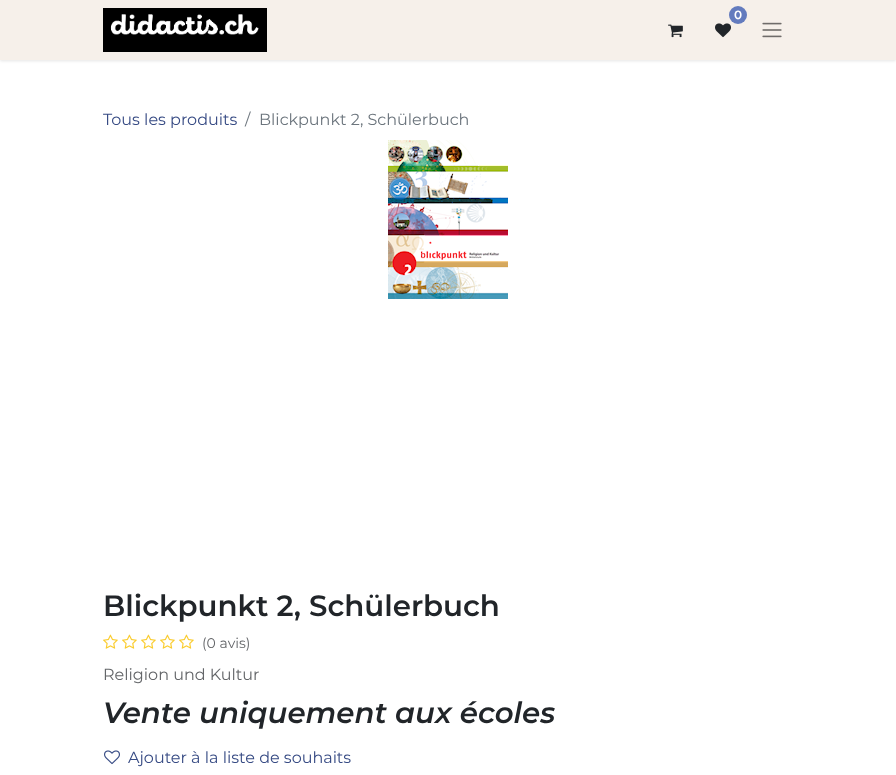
<svg xmlns="http://www.w3.org/2000/svg" xmlns:xlink="http://www.w3.org/1999/xlink" width="896" height="775" viewBox="0 0 896 775">
<style>
.cls-1{font:600 12px Montserrat;fill:#ffffff}
.cls-2{font:16px Montserrat;fill:#374b84}
.cls-3{font:16px Montserrat;fill:#6c757d}
.cls-4{font:600 29.25px Montserrat;fill:#212529}
.cls-5{font:14px Montserrat;fill:#646669}
.cls-6{font:16px Montserrat;fill:#646669}
.cls-7{font:italic 600 29.25px Montserrat;fill:#212529}
</style>
<rect width="100%" height="100%" fill="#ffffff"/>
<rect fill="#000000" fill-opacity="0.1" filter="blur(1.5px)" x="0" y="1" width="896" height="60"/>
<rect fill="#f6f0ea" x="0" y="0" width="896" height="60"/>
<image xlink:href="image0.png" x="103" y="8" width="164" height="44"/>
<image xlink:href="image1.png" x="715" y="23" width="16" height="15"/>
<circle fill="#637bbe" cx="738" cy="15" r="9"/>
<image xlink:href="image2.png" x="668" y="24" width="15" height="14"/>
<image xlink:href="image3.png" x="762" y="22" width="20" height="16"/>
<image xlink:href="image4.png" x="388" y="140" width="120" height="159"/>
<image xlink:href="image5.png" x="103" y="634" width="15" height="15"/>
<image xlink:href="image5.png" x="122" y="634" width="15" height="15"/>
<image xlink:href="image5.png" x="141" y="634" width="15" height="15"/>
<image xlink:href="image5.png" x="160" y="634" width="15" height="15"/>
<image xlink:href="image5.png" x="179" y="634" width="15" height="15"/>
<image xlink:href="image6.png" x="104" y="750" width="16" height="15"/>
<text class="cls-1" x="734" y="19">0</text>
<text class="cls-2" x="103" y="125">Tous les produits</text>
<text class="cls-3" x="245" y="125">/</text>
<text class="cls-3" x="259" y="125">Blickpunkt 2, Schülerbuch</text>
<text class="cls-4" x="103" y="616">Blickpunkt 2, Schülerbuch</text>
<text class="cls-5" x="202" y="648">(0 avis)</text>
<text class="cls-6" x="103" y="680">Religion und Kultur</text>
<text class="cls-7" x="103" y="723">Vente uniquement aux écoles</text>
<text class="cls-2" x="128" y="763">Ajouter à la liste de souhaits</text>
</svg>
